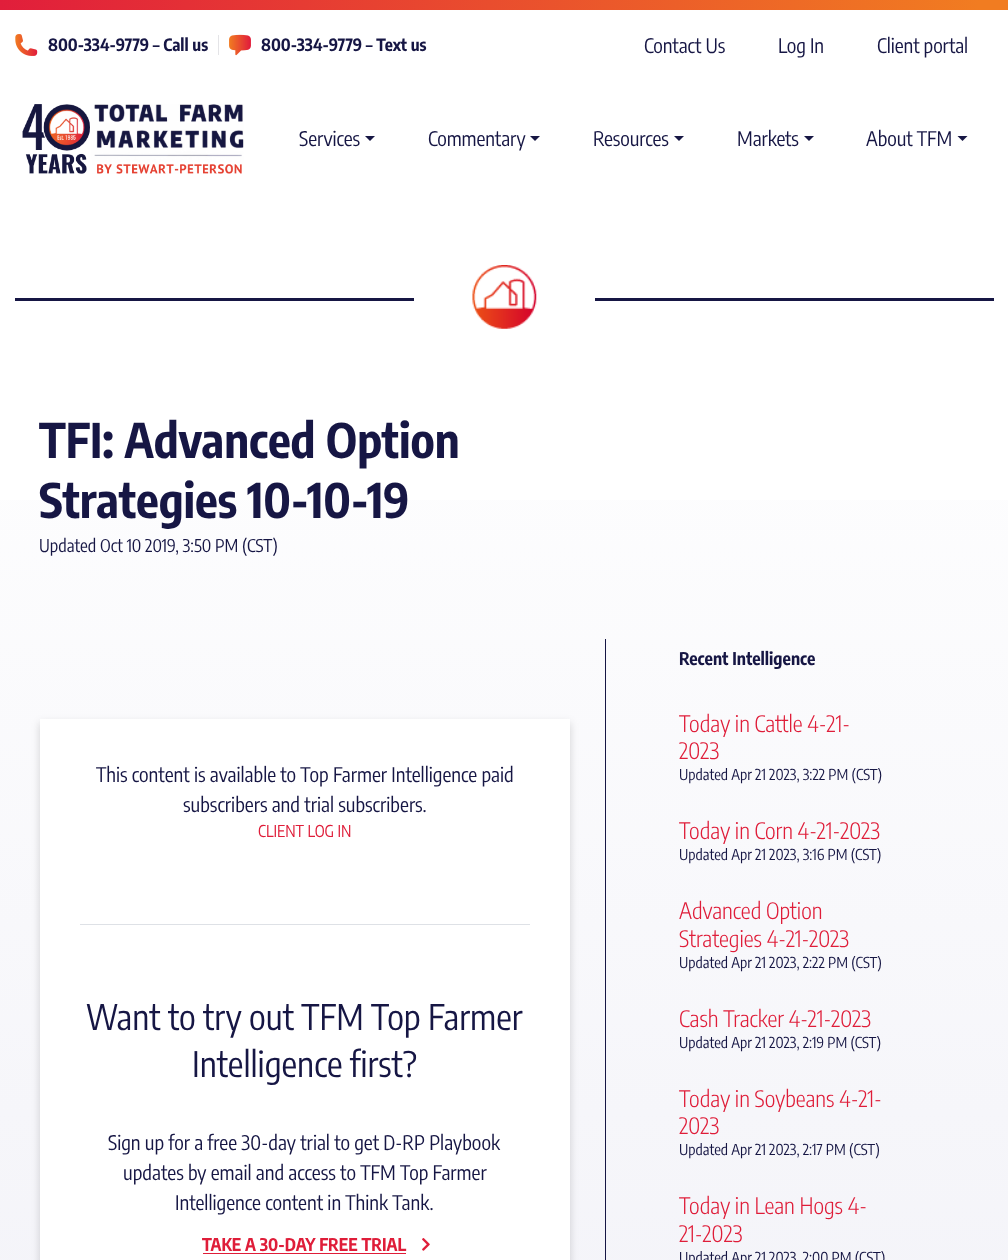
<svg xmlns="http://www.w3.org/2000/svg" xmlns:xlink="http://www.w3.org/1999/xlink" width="1008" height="1260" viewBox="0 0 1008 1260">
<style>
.cls-1{font:bold 17px Encode Sans Condensed;fill:#161644}
.cls-2{font:20px Encode Sans Condensed;letter-spacing:-0.1px;fill:#161644}
.cls-3{font:bold 47.5px Encode Sans Condensed;fill:#161644}
.cls-4{font:17.5px Encode Sans Condensed;fill:#161644}
.cls-5{font:20px Encode Sans Condensed;fill:#161644}
.cls-6{font:16.25px Encode Sans Condensed;fill:#df1d39}
.cls-7{font:35px Encode Sans Condensed;fill:#161644}
.cls-8{font:bold 17.5px Encode Sans Condensed;fill:#df1d39}
.cls-9{font:bold 17.5px Encode Sans Condensed;fill:#161644}
.cls-10{font:300 22.5px Encode Sans Condensed;fill:#df1d39}
.cls-11{font:15px Encode Sans Condensed;fill:#161644}
</style>
<defs>
<linearGradient id="g1" gradientUnits="userSpaceOnUse" x1="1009" y1="5" x2="0" y2="5"><stop offset="0.03" stop-color="#f17c21"/><stop offset="1" stop-color="#e11e3b"/></linearGradient>
<linearGradient id="g2" gradientUnits="userSpaceOnUse" x1="504" y1="265" x2="504" y2="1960"><stop offset="0" stop-color="#ffffff"/><stop offset="1" stop-color="#ededf5"/></linearGradient>
</defs>
<rect width="100%" height="100%" fill="#ffffff"/>
<rect fill="url(#g1)" x="0" y="0" width="1008" height="10"/>
<image xlink:href="image0.png" x="15" y="34" width="23" height="22"/>
<rect fill="#e4e4e7" x="218" y="35" width="1" height="20"/>
<image xlink:href="image1.png" x="229" y="34" width="22" height="22"/>
<image xlink:href="image2.png" x="22" y="104" width="222" height="70"/>
<path fill="#171744" d="M365 136H375L370 141Z"/>
<path fill="#171744" d="M530 136H540L535 141Z"/>
<path fill="#171744" d="M674 136H684L679 141Z"/>
<path fill="#171744" d="M804 136H814L809 141Z"/>
<path fill="#171744" d="M957.5 136H967.5L962.5 141Z"/>
<rect fill="url(#g2)" x="0" y="500" width="1008" height="760"/>
<rect fill="#161644" x="15" y="298" width="979" height="3"/>
<rect fill="#ffffff" x="414" y="298" width="181" height="3"/>
<image xlink:href="image3.png" x="472" y="265" width="65" height="64"/>
<rect fill="#000000" fill-opacity="0.16" filter="blur(4px)" x="40" y="723" width="530" height="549"/>
<rect fill="#ffffff" x="40" y="719" width="530" height="541"/>
<rect fill="#dee1e6" x="80" y="924" width="450" height="1"/>
<rect fill="#df1d39" x="203" y="1253" width="203" height="1"/>
<image xlink:href="image4.png" x="422" y="1238" width="8" height="13"/>
<rect fill="#161644" x="605" y="639" width="1" height="621"/>
<text class="cls-1" x="48" y="51">800-334-9779 – Call us</text>
<text class="cls-1" x="261" y="51">800-334-9779 – Text us</text>
<text class="cls-2" x="644" y="53">Contact Us</text>
<text class="cls-2" x="778" y="53">Log In</text>
<text class="cls-2" x="877" y="53">Client portal</text>
<text class="cls-2" x="299" y="146">Services</text>
<text class="cls-2" x="428" y="146">Commentary</text>
<text class="cls-2" x="593" y="146">Resources</text>
<text class="cls-2" x="737" y="146">Markets</text>
<text class="cls-2" x="866" y="146">About TFM</text>
<text class="cls-3"><tspan x="39" y="458">TFI: Advanced Option</tspan><tspan x="39" y="518">Strategies 10-10-19</tspan></text>
<text class="cls-4" x="39" y="552">Updated Oct 10 2019, 3:50 PM (CST)</text>
<text class="cls-5" x="96" y="782">This content is available to Top Farmer Intelligence paid</text>
<text class="cls-5" x="183" y="812">subscribers and trial subscribers.</text>
<text class="cls-6" x="258" y="837">CLIENT LOG IN</text>
<text class="cls-7" x="86" y="1030">Want to try out TFM Top Farmer</text>
<text class="cls-7" x="192" y="1077">Intelligence first?</text>
<text class="cls-5" x="108" y="1150">Sign up for a free 30-day trial to get D-RP Playbook</text>
<text class="cls-5" x="123" y="1180">updates by email and access to TFM Top Farmer</text>
<text class="cls-5" x="175" y="1210">Intelligence content in Think Tank.</text>
<text class="cls-8" x="202" y="1251">TAKE A 30-DAY FREE TRIAL</text>
<text class="cls-9" x="679" y="665">Recent Intelligence</text>
<text class="cls-10"><tspan x="679" y="732">Today in Cattle 4-21-</tspan><tspan x="679" y="759">2023</tspan></text>
<text class="cls-11" x="679" y="780">Updated Apr 21 2023, 3:22 PM (CST)</text>
<text class="cls-10" x="679" y="839">Today in Corn 4-21-2023</text>
<text class="cls-11" x="679" y="860">Updated Apr 21 2023, 3:16 PM (CST)</text>
<text class="cls-10"><tspan x="679" y="919">Advanced Option</tspan><tspan x="679" y="947">Strategies 4-21-2023</tspan></text>
<text class="cls-11" x="679" y="968">Updated Apr 21 2023, 2:22 PM (CST)</text>
<text class="cls-10" x="679" y="1027">Cash Tracker 4-21-2023</text>
<text class="cls-11" x="679" y="1048">Updated Apr 21 2023, 2:19 PM (CST)</text>
<text class="cls-10"><tspan x="679" y="1107">Today in Soybeans 4-21-</tspan><tspan x="679" y="1134">2023</tspan></text>
<text class="cls-11" x="679" y="1155">Updated Apr 21 2023, 2:17 PM (CST)</text>
<text class="cls-10"><tspan x="679" y="1214">Today in Lean Hogs 4-</tspan><tspan x="679" y="1242">21-2023</tspan></text>
<text class="cls-11" x="679" y="1263">Updated Apr 21 2023, 2:00 PM (CST)</text>
</svg>
